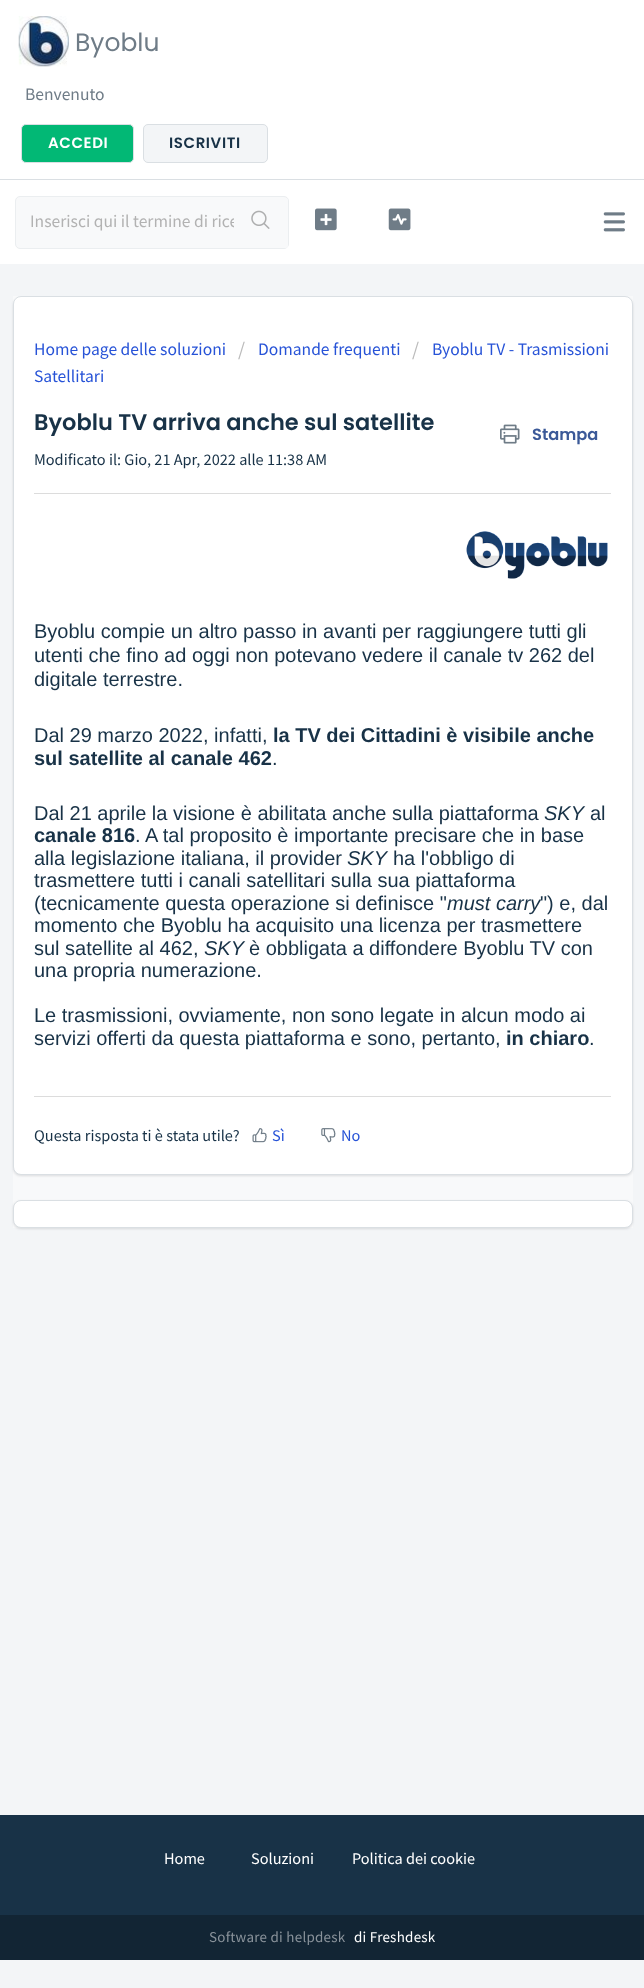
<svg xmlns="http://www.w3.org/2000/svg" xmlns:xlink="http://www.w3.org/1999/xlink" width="644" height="1988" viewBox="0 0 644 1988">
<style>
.cls-1{font:25px Poppins;fill:#6f7c87}
.cls-2{font:17.5px Source Sans Pro;fill:#6f7c87}
.cls-3{font:600 15px Poppins;letter-spacing:0.6px;fill:#ffffff}
.cls-4{font:600 15px Poppins;letter-spacing:0.6px;fill:#183247}
.cls-5{font:17.5px Source Sans Pro;fill:#b2b2b2}
.cls-6{font:17.5px Source Sans Pro;fill:#2753d7}
.cls-7{font:20px Source Sans Pro;fill:#bbbbbb}
.cls-8{font:600 22.5px Poppins;fill:#183247}
.cls-9{font:600 16.25px Poppins;fill:#3b5998}
.cls-10{font:16.25px Source Sans Pro;fill:#183247}
.cls-11{font:20px Liberation Sans;fill:#183247}
.cls-12{font:bold 20px Liberation Sans;fill:#183247}
.cls-13{font:italic 20px Liberation Sans;fill:#183247}
.cls-14{font:16.25px Source Sans Pro;fill:#2753d7}
.cls-15{font:16.25px Source Sans Pro;fill:#ffffff}
.cls-16{font:15px Source Sans Pro;letter-spacing:0.25px;fill:#89929a}
.cls-17{font:15px Source Sans Pro;letter-spacing:0.25px;fill:#ffffff}
</style>
<rect width="100%" height="100%" fill="#f3f5f7"/>
<rect fill="#ffffff" x="0" y="0" width="644" height="179"/>
<rect fill="#dadfe3" x="0" y="179" width="644" height="1"/>
<image xlink:href="image0.png" x="18" y="16" width="51" height="51"/>
<rect fill="#02b875" stroke="#dadfe3" x="21.5" y="124.5" width="112" height="38" rx="4.5"/>
<rect fill="#f3f5f7" stroke="#dadfe3" x="143.5" y="124.5" width="124" height="38" rx="4.5"/>
<rect fill="#ffffff" x="0" y="180" width="644" height="84"/>
<image xlink:href="image1.png" x="603" y="212" width="22" height="20"/>
<rect fill="#f8f9fa" stroke="#ebeef0" x="15.5" y="196.5" width="273" height="52" rx="4.5"/>
<image xlink:href="image3.png" x="315" y="208" width="22" height="23"/>
<image xlink:href="image4.png" x="388" y="208" width="23" height="23"/>
<rect fill="#f8f9fa" x="13" y="296" width="620" height="932"/>
<rect fill="#3f3f44" fill-opacity="0.15" filter="blur(1px)" x="13" y="298" width="620" height="878" rx="8"/>
<rect fill="#ffffff" stroke="#dadfe3" x="13.5" y="296.5" width="619" height="878" rx="7.5"/>
<image xlink:href="image5.png" x="500" y="424" width="20" height="20"/>
<rect fill="#dcdcdc" x="34" y="493" width="577" height="1"/>
<image xlink:href="image6.png" x="466" y="531" width="142" height="48"/>
<rect fill="#dcdcdc" x="34" y="1096" width="577" height="1"/>
<image xlink:href="image7.png" x="252" y="1128" width="15" height="15"/>
<image xlink:href="image8.png" x="321" y="1128" width="15" height="15"/>
<rect fill="#3f3f44" fill-opacity="0.15" filter="blur(1px)" x="13" y="1201" width="620" height="28" rx="8"/>
<rect fill="#ffffff" stroke="#dadfe3" x="13.5" y="1200.5" width="619" height="27" rx="7.5"/>
<rect fill="#183247" x="0" y="1815" width="644" height="100"/>
<rect fill="#122534" x="0" y="1915" width="644" height="45"/>
<text class="cls-1" x="75" y="51">Byoblu</text>
<text class="cls-2" x="25" y="100">Benvenuto</text>
<text class="cls-3" x="48" y="148">ACCEDI</text>
<text class="cls-4" x="169" y="148">ISCRIVITI</text>
<text class="cls-5" x="30" y="227">Inserisci qui il termine di rice</text>
<rect fill="#f8f9fa" x="234" y="198" width="54" height="50" rx="2.5"/>
<image xlink:href="image2.png" x="251" y="210" width="19" height="19"/>
<text class="cls-6" x="34" y="355">Home page delle soluzioni</text>
<text class="cls-7" x="238" y="356">/</text>
<text class="cls-6" x="258" y="355">Domande frequenti</text>
<text class="cls-7" x="412" y="356">/</text>
<text class="cls-6" x="432" y="355">Byoblu TV - Trasmissioni</text>
<text class="cls-6" x="34" y="382">Satellitari</text>
<text class="cls-8" x="34" y="430">Byoblu TV arriva anche sul satellite</text>
<text class="cls-9" x="532" y="440">Stampa</text>
<text class="cls-10" x="34" y="465">Modificato il: Gio, 21 Apr, 2022 alle 11:38 AM</text>
<text class="cls-11"><tspan x="34" y="638">Byoblu compie un altro passo in avanti per raggiungere tutti gli</tspan><tspan x="34" y="662">utenti che fino ad oggi non potevano vedere il canale tv 262 del</tspan><tspan x="34" y="686">digitale terrestre.</tspan></text>
<text class="cls-11" x="34" y="742">Dal 29 marzo 2022, infatti,</text>
<text class="cls-12" x="273" y="742">la TV dei Cittadini è visibile anche</text>
<text class="cls-12" x="34" y="765">sul satellite al canale 462</text>
<text class="cls-11" x="272" y="765">.</text>
<text class="cls-11" x="34" y="820">Dal 21 aprile la visione è abilitata anche sulla piattaforma</text>
<text class="cls-13" x="544" y="820">SKY</text>
<text class="cls-11" x="590" y="820">al</text>
<text class="cls-12" x="34" y="842">canale 816</text>
<text class="cls-11" x="135" y="842">. A tal proposito è importante precisare che in base</text>
<text class="cls-11" x="34" y="865">alla legislazione italiana, il provider</text>
<text class="cls-13" x="347" y="865">SKY</text>
<text class="cls-11" x="393" y="865">ha l'obbligo di</text>
<text class="cls-11"><tspan x="34" y="887">trasmettere tutti i canali satellitari sulla sua piattaforma</tspan><tspan x="34" y="910">(tecnicamente questa operazione si definisce "</tspan></text>
<text class="cls-13" x="447" y="910">must carry</text>
<text class="cls-11" x="540" y="910">") e, dal</text>
<text class="cls-11"><tspan x="34" y="932">momento che Byoblu ha acquisito una licenza per trasmettere</tspan><tspan x="34" y="955">sul satellite al 462,</tspan></text>
<text class="cls-13" x="204" y="955">SKY</text>
<text class="cls-11" x="249" y="955">è obbligata a diffondere Byoblu TV con</text>
<text class="cls-11" x="34" y="977">una propria numerazione.</text>
<text class="cls-11"><tspan x="34" y="1022">Le trasmissioni, ovviamente, non sono legate in alcun modo ai</tspan><tspan x="34" y="1045">servizi offerti da questa piattaforma e sono, pertanto,</tspan></text>
<text class="cls-12" x="506" y="1045">in chiaro</text>
<text class="cls-11" x="589" y="1045">.</text>
<text class="cls-10" x="34" y="1141">Questa risposta ti è stata utile?</text>
<text class="cls-14" x="272" y="1141">Sì</text>
<text class="cls-14" x="341" y="1141">No</text>
<text class="cls-15" x="164" y="1864">Home</text>
<text class="cls-15" x="251" y="1864">Soluzioni</text>
<text class="cls-15" x="352" y="1864">Politica dei cookie</text>
<text class="cls-16" x="209" y="1942">Software di helpdesk</text>
<text class="cls-17" x="354" y="1942">di Freshdesk</text>
</svg>
